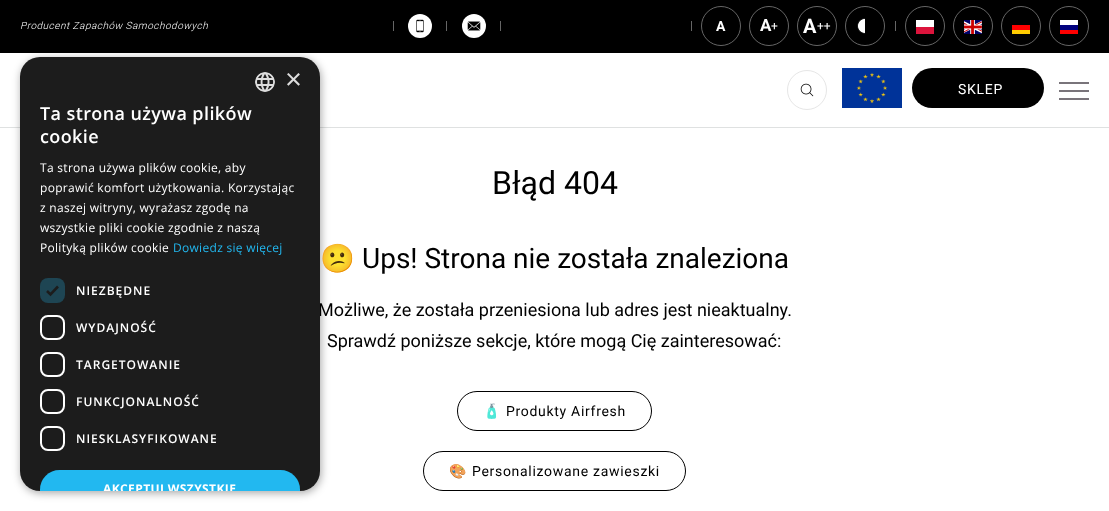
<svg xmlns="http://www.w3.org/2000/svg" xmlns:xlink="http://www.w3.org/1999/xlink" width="1109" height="511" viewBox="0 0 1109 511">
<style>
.cls-1{font:italic 300 10px Roboto;letter-spacing:0.5px;fill:#ffffff}
.cls-2{font:bold 14px Roboto;fill:#ffffff}
.cls-3{font:bold 17px Roboto;fill:#ffffff}
.cls-4{font:12px Roboto;fill:#ffffff}
.cls-5{font:bold 20px Roboto;fill:#ffffff}
.cls-6{font:14px Roboto;letter-spacing:0.7px;fill:#ffffff}
.cls-7{font:32px Roboto;fill:#000000}
.cls-8{font:28px Noto Color Emoji;fill:#000000}
.cls-9{font:28px Roboto;fill:#000000}
.cls-10{font:18px Roboto;fill:#000000}
.cls-11{font:14px Noto Color Emoji;letter-spacing:0.7px;fill:#000000}
.cls-12{font:14px Roboto;letter-spacing:0.7px;fill:#000000}
.cls-13{font:29px Liberation Sans;fill:#dddddd}
.cls-14{font:600 18px Open Sans;letter-spacing:0.4px;fill:#ffffff}
.cls-15{font:12px Open Sans;letter-spacing:0.3px;fill:#ffffff}
.cls-16{font:12px Open Sans;letter-spacing:0.3px;fill:#22b8f0}
.cls-17{font:600 12px Open Sans;letter-spacing:1px;fill:#ffffff}
.cls-18{font:bold 12px Open Sans;letter-spacing:0.4px;fill:#ffffff}
</style>
<defs>
<clipPath id="clip1"><rect x="20" y="57" width="300" height="434" rx="20"/></clipPath>
</defs>
<rect width="100%" height="100%" fill="#ffffff"/>
<rect fill="#dfe1e1" x="0" y="127" width="1109" height="1"/>
<rect fill="#000000" x="0" y="0" width="1109" height="53"/>
<rect fill="#666666" x="393" y="21" width="1" height="10"/>
<circle fill="#ffffff" cx="420" cy="26" r="12"/>
<image xlink:href="image0.png" x="416" y="19" width="8" height="14"/>
<rect fill="#666666" x="446" y="21" width="1" height="10"/>
<circle fill="#ffffff" cx="474" cy="26" r="12"/>
<image xlink:href="image1.png" x="467" y="21" width="14" height="10"/>
<rect fill="#666666" x="500" y="21" width="1" height="10"/>
<rect fill="#666666" x="691" y="21" width="1" height="10"/>
<circle fill="none" stroke="#666666" cx="721" cy="26" r="19.5"/>
<circle fill="none" stroke="#666666" cx="769" cy="26" r="19.5"/>
<circle fill="none" stroke="#666666" cx="817" cy="26" r="19.5"/>
<circle fill="none" stroke="#666666" cx="865" cy="26" r="19.5"/>
<image xlink:href="image2.png" x="857" y="18" width="8" height="16"/>
<rect fill="#666666" x="895" y="21" width="1" height="10"/>
<circle fill="none" stroke="#666666" cx="925" cy="26" r="19.5"/>
<rect fill="#ffffff" x="916" y="20" width="18" height="7"/>
<rect fill="#dc143c" x="916" y="27" width="18" height="7"/>
<circle fill="none" stroke="#666666" cx="973" cy="26" r="19.5"/>
<image xlink:href="image3.png" x="964" y="20" width="18" height="14"/>
<circle fill="none" stroke="#666666" cx="1021" cy="26" r="19.5"/>
<rect fill="#ffcc00" x="1012" y="30" width="18" height="4"/>
<rect fill="#ff0000" x="1012" y="25" width="18" height="5"/>
<circle fill="none" stroke="#666666" cx="1069" cy="26" r="19.5"/>
<rect fill="#ffffff" x="1060" y="20" width="18" height="5"/>
<rect fill="#01017e" x="1060" y="25" width="18" height="5"/>
<rect fill="#fe0101" x="1060" y="30" width="18" height="4"/>
<image xlink:href="image4.png" x="20" y="65" width="4" height="12"/>
<circle fill="none" stroke="#e6e6e6" cx="807" cy="90" r="19.5"/>
<image xlink:href="image5.png" x="800" y="83" width="14" height="14"/>
<image xlink:href="image6.png" x="842" y="68" width="60" height="40"/>
<rect fill="#000000" x="912" y="68" width="132" height="40" rx="20"/>
<rect fill="#79747a" x="1059" y="82" width="30" height="2"/>
<rect fill="#79747a" x="1059" y="90" width="30" height="2"/>
<rect fill="#79747a" x="1059" y="98" width="30" height="2"/>
<rect fill="none" stroke="#000000" x="457.5" y="391.5" width="194" height="39" rx="19.5"/>
<rect fill="none" stroke="#000000" x="423.5" y="451.5" width="262" height="39" rx="19.5"/>
<rect fill="#000000" fill-opacity="0.35" filter="blur(4px)" x="21" y="59" width="300" height="434" rx="20"/>
<text class="cls-1" x="20" y="29">Producent Zapachów Samochodowych</text>
<text class="cls-2" x="716" y="31">A</text>
<text class="cls-3" x="760" y="31">A</text>
<text class="cls-4" x="771" y="30">+</text>
<text class="cls-5" x="803" y="33">A</text>
<text class="cls-4" x="817" y="30">++</text>
<text class="cls-6" x="958" y="94">SKLEP</text>
<text class="cls-7" x="492" y="194">Błąd 404</text>
<text class="cls-8" x="320" y="268">😕</text>
<text class="cls-9" x="362" y="268">Ups! Strona nie została znaleziona</text>
<text class="cls-10" x="318" y="316">Możliwe, że została przeniesiona lub adres jest nieaktualny.</text>
<text class="cls-10" x="327" y="347">Sprawdź poniższe sekcje, które mogą Cię zainteresować:</text>
<text class="cls-11" x="483" y="416">🧴</text>
<text class="cls-12" x="506" y="416">Produkty Airfresh</text>
<text class="cls-11" x="449" y="476">🎨</text>
<text class="cls-12" x="472" y="476">Personalizowane zawieszki</text>
<rect fill="#1c1c1c" x="20" y="57" width="300" height="434" rx="20"/>
<image xlink:href="image7.png" x="255" y="72" width="20" height="20"/>
<text class="cls-13" x="285" y="89">×</text>
<text class="cls-14"><tspan x="40" y="120">Ta strona używa plików</tspan><tspan x="40" y="143">cookie</tspan></text>
<text class="cls-15"><tspan x="40" y="172">Ta strona używa plików cookie, aby</tspan><tspan x="40" y="192">poprawić komfort użytkowania. Korzystając</tspan><tspan x="40" y="212">z naszej witryny, wyrażasz zgodę na</tspan><tspan x="40" y="232">wszystkie pliki cookie zgodnie z naszą</tspan><tspan x="40" y="252">Polityką plików cookie</tspan></text>
<text class="cls-16" x="173" y="252">Dowiedz się więcej</text>
<rect fill="#1e4553" x="40" y="278" width="25" height="25" rx="8"/>
<path fill="none" stroke="#1c1c1c" stroke-width="2.6" d="M47 291L50.5 294.5L58 286.5"/>
<text class="cls-17" x="76" y="295">NIEZBĘDNE</text>
<rect fill="none" stroke="#ffffff" stroke-width="2" x="41" y="316" width="23" height="23" rx="7"/>
<text class="cls-17" x="76" y="332">WYDAJNOŚĆ</text>
<rect fill="none" stroke="#ffffff" stroke-width="2" x="41" y="353" width="23" height="23" rx="7"/>
<text class="cls-17" x="76" y="369">TARGETOWANIE</text>
<rect fill="none" stroke="#ffffff" stroke-width="2" x="41" y="390" width="23" height="23" rx="7"/>
<text class="cls-17" x="76" y="406">FUNKCJONALNOŚĆ</text>
<rect fill="none" stroke="#ffffff" stroke-width="2" x="41" y="427" width="23" height="23" rx="7"/>
<text class="cls-17" x="76" y="443">NIESKLASYFIKOWANE</text>
<g clip-path="url(#clip1)">
<rect fill="#22b8f0" x="40" y="470" width="260" height="39" rx="19.5"/>
<text class="cls-18" x="103" y="493">AKCEPTUJ WSZYSTKIE</text>
</g>
</svg>
